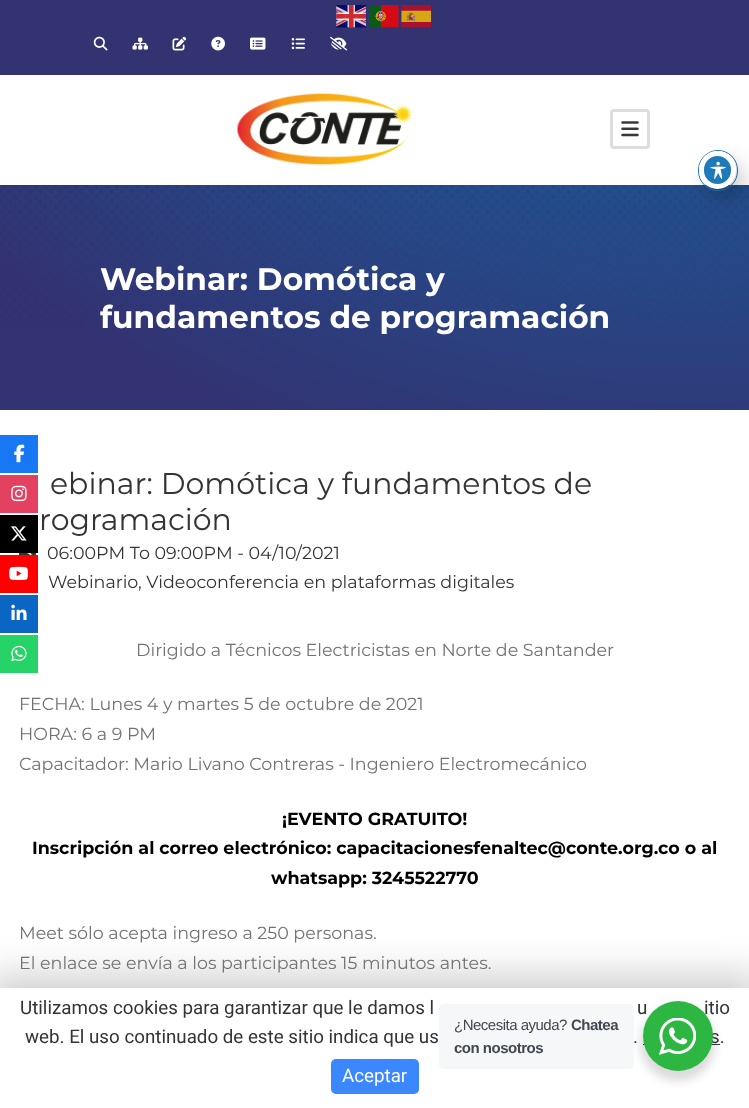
<svg xmlns="http://www.w3.org/2000/svg" xmlns:xlink="http://www.w3.org/1999/xlink" width="749" height="1108" viewBox="0 0 749 1108">
<style>
.cls-1{font:bold 31.25px Montserrat;fill:#ffffff}
.cls-2{font:30px Montserrat;fill:#343434}
.cls-3{font:17.5px Montserrat;fill:#343434}
.cls-4{font:17.5px Montserrat;fill:#727272}
.cls-5{font:bold 17.5px Montserrat;fill:#000000}
.cls-6{font:18.75px Roboto;fill:#343434}
.cls-7{font:18.75px Roboto;fill:#ffffff}
.cls-8{font:15px Liberation Sans;letter-spacing:-0.5px;fill:#43474e}
.cls-9{font:bold 15px Liberation Sans;letter-spacing:-0.5px;fill:#43474e}
</style>
<rect width="100%" height="100%" fill="#ffffff"/>
<rect fill="#333372" x="0" y="0" width="749" height="75"/>
<image xlink:href="image0.png" x="336" y="5" width="30" height="23"/>
<image xlink:href="image1.png" x="369" y="5" width="30" height="23"/>
<image xlink:href="image2.png" x="401" y="5" width="30" height="23"/>
<image xlink:href="image3.png" x="93" y="36" width="15" height="15"/>
<image xlink:href="image4.png" x="132" y="37" width="16" height="13"/>
<image xlink:href="image5.png" x="172" y="36" width="15" height="15"/>
<image xlink:href="image6.png" x="211" y="36" width="14" height="15"/>
<image xlink:href="image7.png" x="250" y="37" width="16" height="13"/>
<image xlink:href="image8.png" x="291" y="38" width="14" height="12"/>
<image xlink:href="image9.png" x="330" y="36" width="18" height="15"/>
<image xlink:href="image10.png" x="237" y="93" width="176" height="72"/>
<rect fill="none" stroke="#dddddd" stroke-width="3" x="611.5" y="110.5" width="37" height="37" rx="2.5"/>
<image xlink:href="image11.png" x="621" y="121" width="18" height="16"/>
<image xlink:href="image13.png" x="0" y="185" width="749" height="225"/>
<rect fill="none" stroke="#1e7ab9" x="698.5" y="150.5" width="39" height="40" rx="19.5"/>
<rect fill="#000000" fill-opacity="0.2" filter="blur(10px)" x="706" y="161" width="38" height="38" rx="19"/>
<rect fill="#1e7ab9" stroke="#ffffff" stroke-width="5" x="701.5" y="153.5" width="32" height="33" rx="16"/>
<image xlink:href="image12.png" x="710" y="161" width="16" height="18"/>
<image xlink:href="image14.png" x="19" y="553" width="18" height="2"/>
<rect fill="#1877f2" x="0" y="435" width="38" height="38"/>
<image xlink:href="image15.png" x="14" y="444" width="11" height="19"/>
<rect fill="#e4405f" x="0" y="475" width="38" height="38"/>
<image xlink:href="image16.png" x="11" y="485" width="16" height="17"/>
<rect fill="#000000" x="0" y="515" width="38" height="38"/>
<image xlink:href="image17.png" x="11" y="526" width="16" height="15"/>
<rect fill="#ff0000" x="0" y="555" width="38" height="38"/>
<image xlink:href="image18.png" x="9" y="566" width="19" height="14"/>
<rect fill="#0a66c2" x="0" y="595" width="38" height="38"/>
<image xlink:href="image19.png" x="11" y="604" width="16" height="16"/>
<rect fill="#25d366" x="0" y="635" width="38" height="38"/>
<image xlink:href="image20.png" x="11" y="645" width="16" height="16"/>
<rect fill="#000000" fill-opacity="0.2" filter="blur(19.5px)" x="-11" y="976" width="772" height="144"/>
<rect fill="#ffffff" x="0" y="988" width="749" height="120"/>
<rect fill="#383838" x="643" y="1044" width="77" height="1"/>
<rect fill="#3a87ff" x="331" y="1059" width="88" height="35" rx="5"/>
<rect fill="#000000" fill-opacity="0.14" filter="blur(5px)" x="640" y="1006" width="75" height="75" rx="37.5"/>
<rect fill="#f5f7f9" x="439" y="1004" width="195" height="65" rx="5"/>
<text class="cls-1"><tspan x="100" y="290">Webinar: Domótica y</tspan><tspan x="100" y="328">fundamentos de programación</tspan></text>
<text class="cls-2" x="50" y="494">ebinar: Domótica y fundamentos de</text>
<text class="cls-2" x="39" y="530">rogramación</text>
<text class="cls-3" x="47" y="559">06:00PM To 09:00PM - 04/10/2021</text>
<text class="cls-3" x="48" y="588">Webinario, Videoconferencia en plataformas digitales</text>
<text class="cls-4" x="136" y="656">Dirigido a Técnicos Electricistas en Norte de Santander</text>
<text class="cls-4"><tspan x="19" y="710">FECHA: Lunes 4 y martes 5 de octubre de 2021</tspan><tspan x="19" y="740">HORA: 6 a 9 PM</tspan><tspan x="19" y="770">Capacitador: Mario Livano Contreras - Ingeniero Electromecánico</tspan></text>
<text class="cls-5" x="282" y="825">¡EVENTO GRATUITO!</text>
<text class="cls-5" x="32" y="854">Inscripción al correo electrónico: capacitacionesfenaltec@conte.org.co o al</text>
<text class="cls-5" x="271" y="884">whatsapp: 3245522770</text>
<text class="cls-4"><tspan x="19" y="939">Meet sólo acepta ingreso a 250 personas.</tspan><tspan x="19" y="969">El enlace se envía a los participantes 15 minutos antes.</tspan></text>
<text class="cls-6" x="20" y="1014">Utilizamos cookies para garantizar que le damos l</text>
<text class="cls-6" x="637" y="1014">u</text>
<text class="cls-6" x="704" y="1014">itio</text>
<text class="cls-6" x="25" y="1043">web. El uso continuado de este sitio indica que us</text>
<text class="cls-6" x="633" y="1043">.</text>
<text class="cls-6" x="710" y="1043">s.</text>
<text class="cls-7" x="342" y="1082">Aceptar</text>
<text class="cls-8" x="454" y="1030">¿Necesita ayuda?</text>
<text class="cls-9" x="571" y="1030">Chatea</text>
<text class="cls-9" x="454" y="1053">con nosotros</text>
<circle fill="#2db742" cx="678" cy="1036" r="35"/>
<image xlink:href="image21.png" x="659" y="1018" width="37" height="37"/>
</svg>
